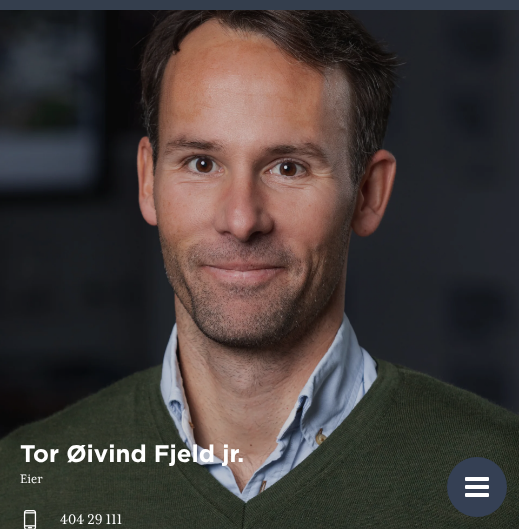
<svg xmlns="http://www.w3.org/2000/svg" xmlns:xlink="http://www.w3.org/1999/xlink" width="519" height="529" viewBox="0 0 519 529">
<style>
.cls-1{font:24px 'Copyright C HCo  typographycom';fill:#ffffff}
.cls-2{font:14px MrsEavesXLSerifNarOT;fill:#ffffff}
.cls-3{font:16px MrsEavesXLSerifNarOT;fill:#ffffff}
</style>
<rect width="100%" height="100%" fill="#343e4d"/>
<image xlink:href="image0.png" x="0" y="10" width="519" height="519"/>
<image xlink:href="image1.png" x="23" y="510" width="14" height="19"/>
<circle fill="#354054" cx="477" cy="487" r="30"/>
<image xlink:href="image2.png" x="465" y="477" width="24" height="20"/>
<text class="cls-1" x="20" y="462">Tor Øivind Fjeld jr.</text>
<text class="cls-2" x="20" y="483">Eier</text>
<text class="cls-3" x="60" y="524">404 29 111</text>
</svg>
